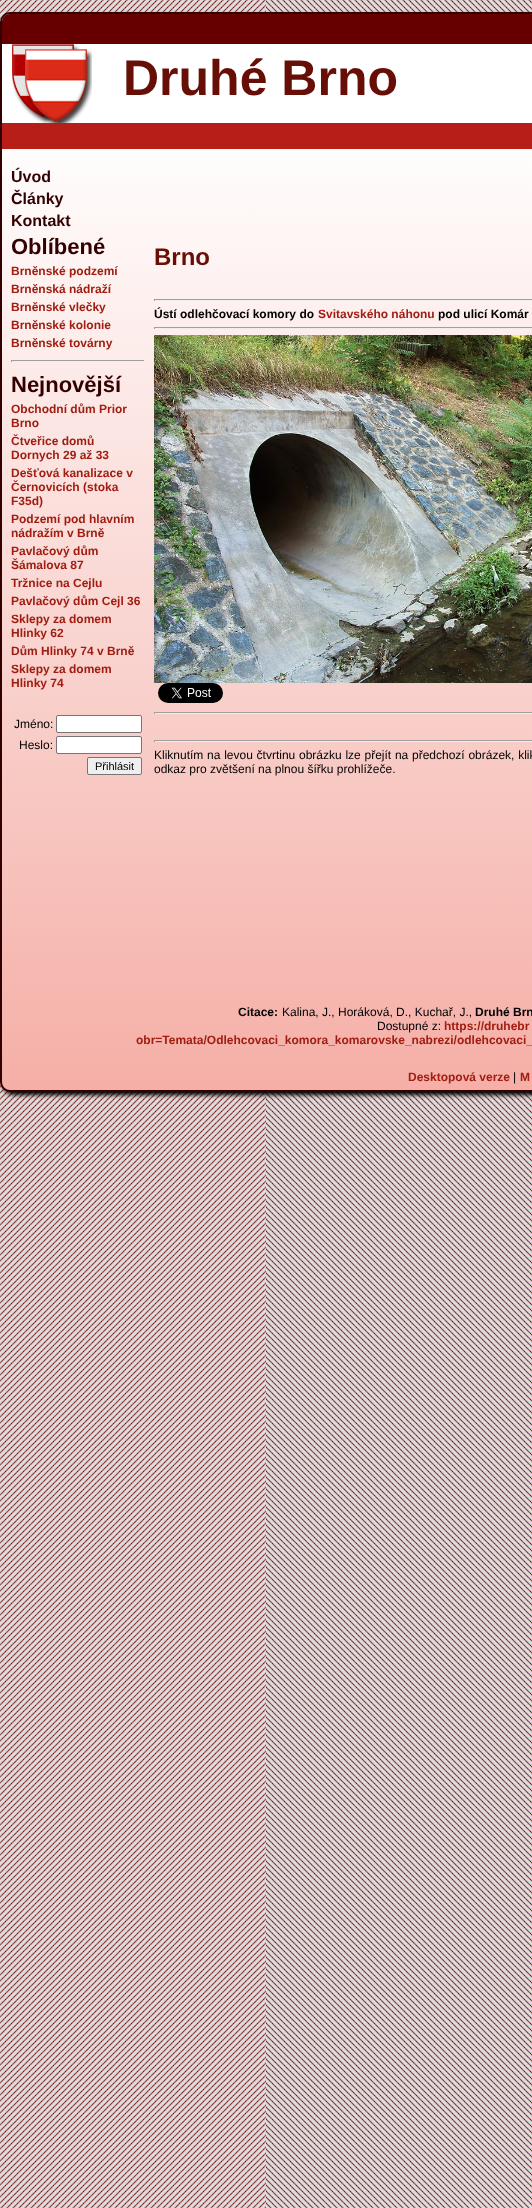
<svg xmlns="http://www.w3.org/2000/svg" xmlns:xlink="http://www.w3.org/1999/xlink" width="532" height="2208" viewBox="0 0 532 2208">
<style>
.cls-1{font:bold 50px Liberation Sans;fill:#670e06}
.cls-2{font:bold 16px Liberation Sans;fill:#330000}
.cls-3{font:bold 22px Liberation Sans;fill:#330000}
.cls-4{font:bold 12px Liberation Sans;fill:#a11d11}
.cls-5{font:12px Liberation Sans;fill:#000000}
.cls-6{font:11px Liberation Sans;fill:#000000}
.cls-7{font:bold 24px Liberation Sans;fill:#670e06}
.cls-8{font:bold 12px Liberation Sans;fill:#000000}
</style>
<defs>
<clipPath id="clip1"><rect x="0" y="12" width="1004" height="1080" rx="10"/></clipPath>
<linearGradient id="g1" gradientUnits="userSpaceOnUse" x1="2" y1="1090" x2="2" y2="14"><stop offset="0" stop-color="#f5afa7"/><stop offset="0.9" stop-color="#ffffff"/></linearGradient>
</defs>
<rect width="100%" height="100%" fill="#ffffff"/>
<image xlink:href="image0.png" x="0" y="0" width="266" height="2208"/>
<image xlink:href="image1.png" x="266" y="0" width="266" height="2208"/>
<rect fill="#000000" filter="blur(2px)" x="3" y="15" width="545" height="1080" rx="10"/>
<g clip-path="url(#clip1)">
<rect fill="url(#g1)" x="0" y="14" width="532" height="1076"/>
</g>
<rect fill="none" stroke="#330000" stroke-width="2" x="1" y="13" width="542" height="1078" rx="9"/>
<path fill="#660000" d="M10 14H532C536.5 14 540 17.5 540 22V44H2V22C2 17.5 5.5 14 10 14Z"/>
<image xlink:href="image2.png" x="12" y="44" width="80" height="79"/>
<rect fill="#b61e17" x="2" y="123" width="530" height="26"/>
<rect fill="#9f9f9f" x="11" y="360" width="134" height="1"/>
<rect fill="#eeeeee" x="144" y="360" width="1" height="2"/>
<rect fill="#eeeeee" x="11" y="361" width="134" height="1"/>
<rect fill="#9f9f9f" x="11" y="360" width="1" height="2"/>
<rect fill="#ffffff" stroke="#767676" x="56.5" y="715.5" width="85" height="17" rx="1.5"/>
<rect fill="#ffffff" stroke="#767676" x="56.5" y="736.5" width="85" height="17" rx="1.5"/>
<rect fill="#efefef" stroke="#767676" x="87.5" y="757.5" width="54" height="17" rx="1.5"/>
<rect fill="#9f9f9f" x="154" y="299" width="378" height="1"/>
<rect fill="#eeeeee" x="154" y="300" width="378" height="1"/>
<rect fill="#9f9f9f" x="154" y="299" width="1" height="2"/>
<rect fill="#9f9f9f" x="154" y="327" width="378" height="1"/>
<rect fill="#eeeeee" x="154" y="328" width="378" height="1"/>
<rect fill="#9f9f9f" x="154" y="327" width="1" height="2"/>
<image xlink:href="image3.png" x="154" y="335" width="378" height="348"/>
<image xlink:href="image4.png" x="158" y="683" width="65" height="20"/>
<rect fill="#9f9f9f" x="154" y="712" width="378" height="1"/>
<rect fill="#eeeeee" x="154" y="713" width="378" height="1"/>
<rect fill="#9f9f9f" x="154" y="712" width="1" height="2"/>
<rect fill="#9f9f9f" x="154" y="740" width="378" height="1"/>
<rect fill="#eeeeee" x="154" y="741" width="378" height="1"/>
<rect fill="#9f9f9f" x="154" y="740" width="1" height="2"/>
<text class="cls-1" x="123" y="95">Druhé Brno</text>
<text class="cls-2"><tspan x="11" y="182">Úvod</tspan><tspan x="11" y="204">Články</tspan><tspan x="11" y="226">Kontakt</tspan></text>
<text class="cls-3" x="11" y="254">Oblíbené</text>
<text class="cls-4"><tspan x="11" y="275">Brněnské podzemí</tspan><tspan x="11" y="293">Brněnská nádraží</tspan><tspan x="11" y="311">Brněnské vlečky</tspan><tspan x="11" y="329">Brněnské kolonie</tspan><tspan x="11" y="347">Brněnské továrny</tspan></text>
<text class="cls-3" x="11" y="392">Nejnovější</text>
<text class="cls-4"><tspan x="11" y="413">Obchodní dům Prior</tspan><tspan x="11" y="427">Brno</tspan><tspan x="11" y="445">Čtveřice domů</tspan><tspan x="11" y="459">Dornych 29 až 33</tspan><tspan x="11" y="477">Dešťová kanalizace v</tspan><tspan x="11" y="491">Černovicích (stoka</tspan><tspan x="11" y="505">F35d)</tspan><tspan x="11" y="523">Podzemí pod hlavním</tspan><tspan x="11" y="537">nádražím v Brně</tspan><tspan x="11" y="555">Pavlačový dům</tspan><tspan x="11" y="569">Šámalova 87</tspan><tspan x="11" y="587">Tržnice na Cejlu</tspan><tspan x="11" y="605">Pavlačový dům Cejl 36</tspan><tspan x="11" y="623">Sklepy za domem</tspan><tspan x="11" y="637">Hlinky 62</tspan><tspan x="11" y="655">Dům Hlinky 74 v Brně</tspan><tspan x="11" y="673">Sklepy za domem</tspan><tspan x="11" y="687">Hlinky 74</tspan></text>
<text class="cls-5" x="14" y="728">Jméno:</text>
<text class="cls-5" x="19" y="749">Heslo:</text>
<text class="cls-6" x="95" y="770">Přihlásit</text>
<text class="cls-7" x="154" y="265">Brno</text>
<text class="cls-8" x="154" y="318">Ústí odlehčovací komory do</text>
<text class="cls-4" x="318" y="318">Svitavského náhonu</text>
<text class="cls-8" x="438" y="318">pod ulicí Komár</text>
<text class="cls-5"><tspan x="154" y="759" word-spacing="0.4">Kliknutím na levou čtvrtinu obrázku lze přejít na předchozí obrázek, klik</tspan><tspan x="154" y="773">odkaz pro zvětšení na plnou šířku prohlížeče.</tspan></text>
<text class="cls-8" x="238" y="1016">Citace:</text>
<text class="cls-5" x="282" y="1016">Kalina, J., Horáková, D., Kuchař, J.,</text>
<text class="cls-8" x="475" y="1016">Druhé Brn</text>
<text class="cls-5" x="377" y="1030">Dostupné z:</text>
<text class="cls-4" x="444" y="1030">https://druhebr</text>
<text class="cls-4" x="136" y="1044">obr=Temata/Odlehcovaci_komora_komarovske_nabrezi/odlehcovaci_</text>
<text class="cls-4" x="408" y="1081">Desktopová verze</text>
<text class="cls-5" x="513" y="1081">|</text>
<text class="cls-4" x="520" y="1081">M</text>
</svg>
